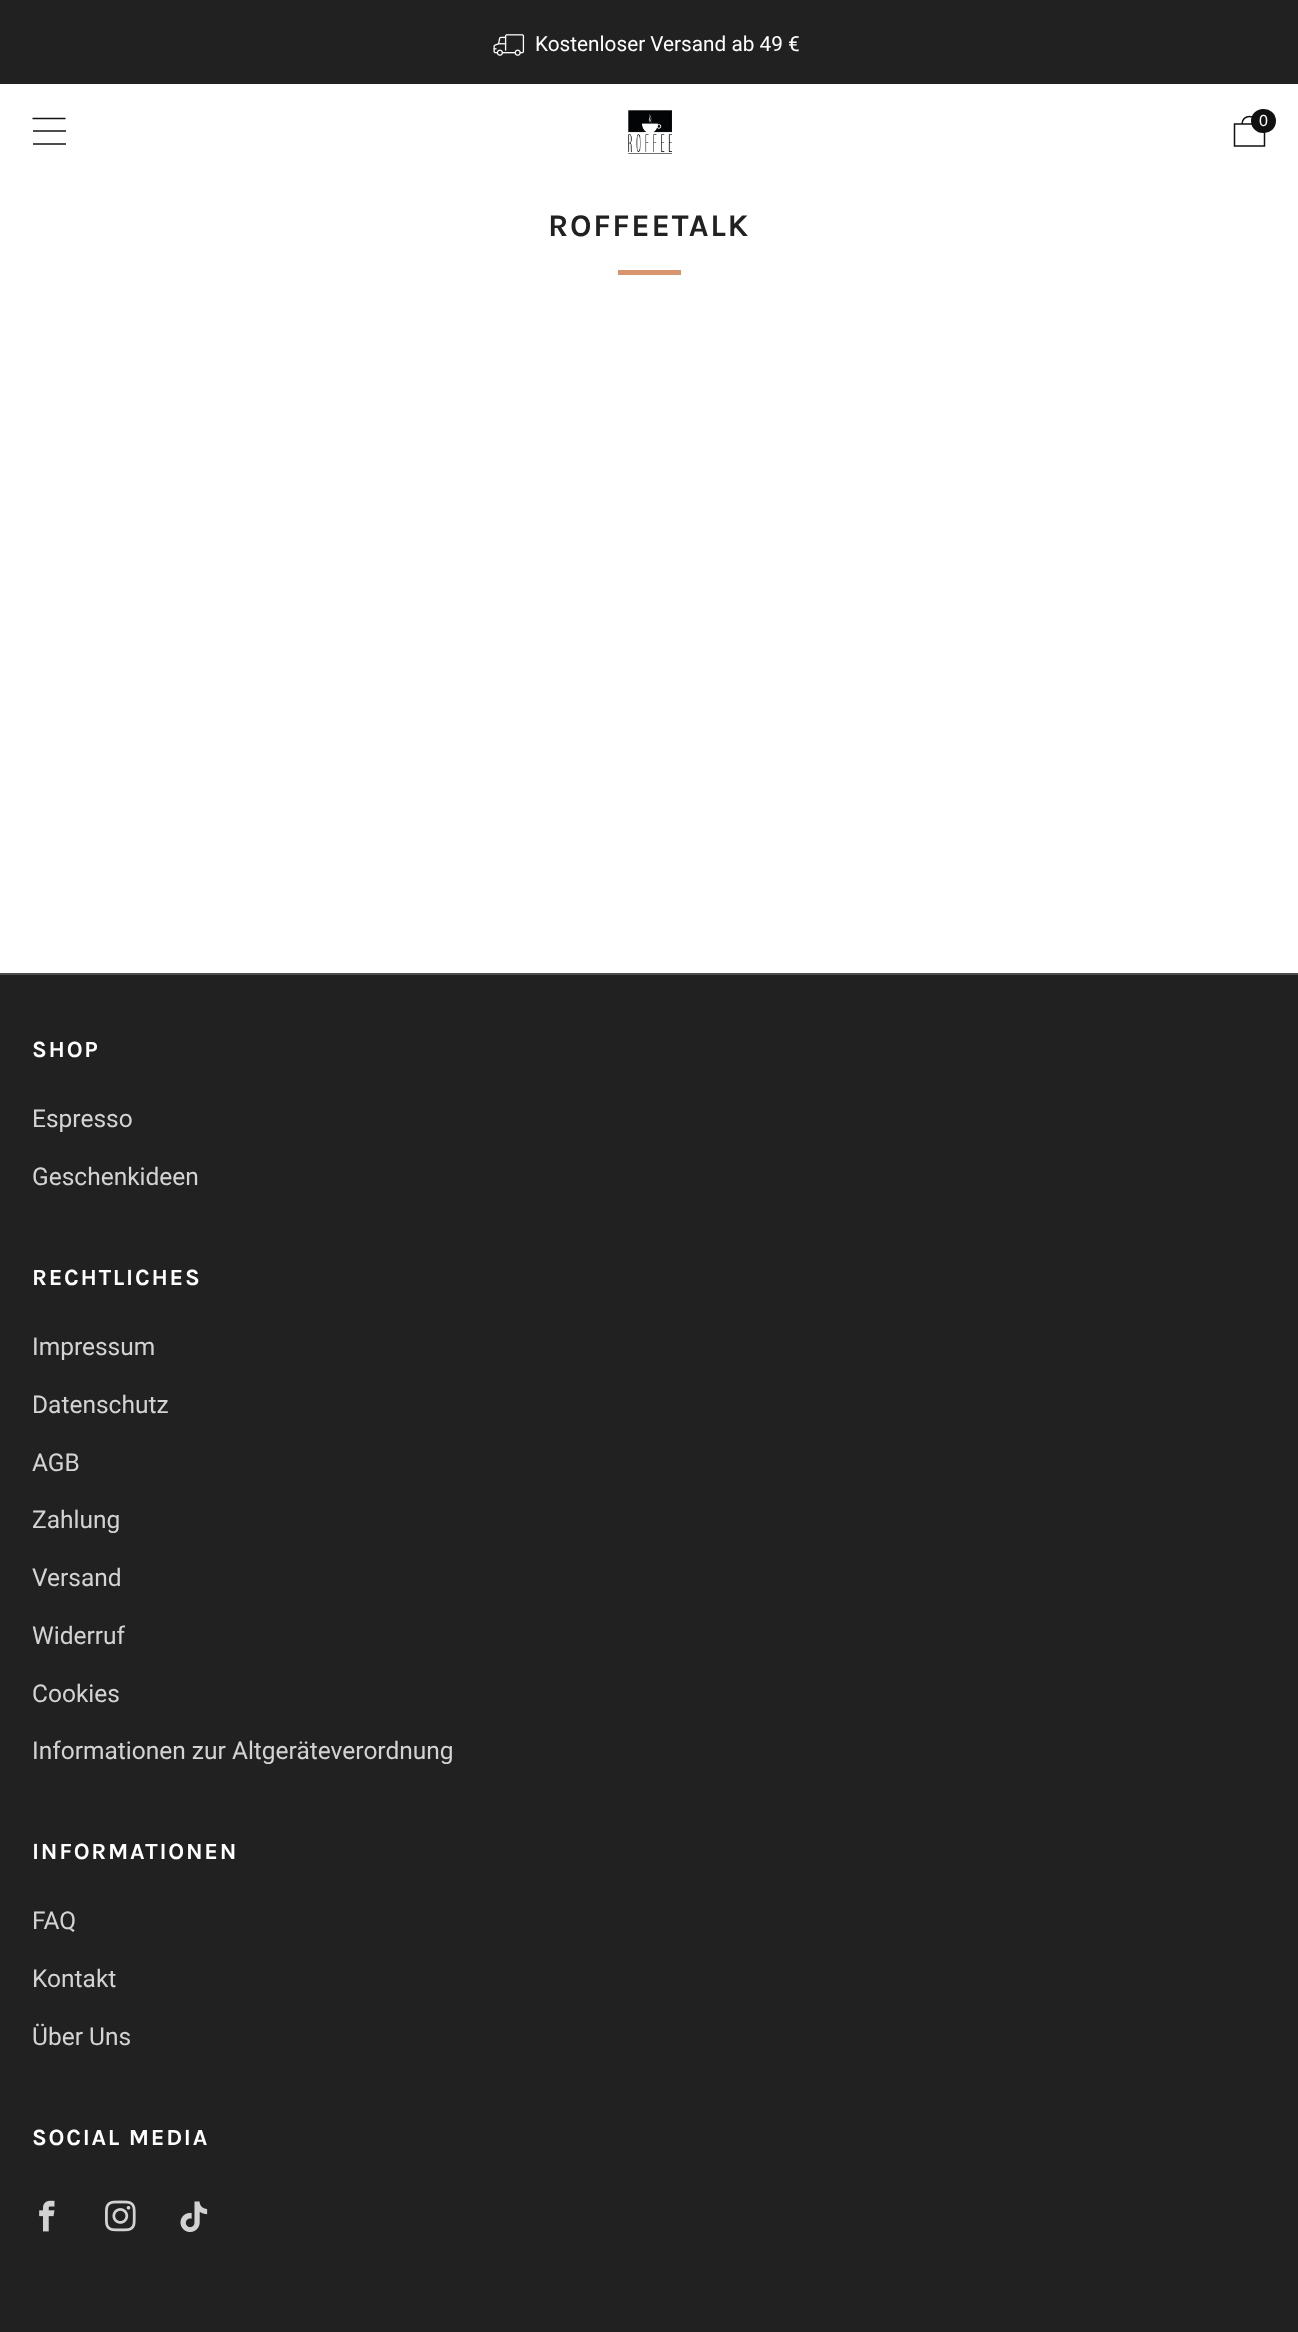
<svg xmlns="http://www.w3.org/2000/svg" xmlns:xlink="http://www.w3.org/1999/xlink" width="1298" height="2332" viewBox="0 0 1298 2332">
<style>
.cls-1{font:20.75px Roboto;fill:#ffffff}
.cls-2{font:16px Liberation Sans;fill:#ffffff}
.cls-3{font:bold 31.5px Karla;letter-spacing:1.75px;fill:#212121}
.cls-4{font:bold 23.25px Karla;letter-spacing:1.75px;fill:#ffffff}
.cls-5{font:24.5px Roboto;fill:#d3d3d3}
</style>
<rect width="100%" height="100%" fill="#ffffff"/>
<rect fill="#212121" x="0" y="0" width="1298" height="84"/>
<image xlink:href="image0.png" x="493" y="34" width="32" height="22"/>
<path fill="none" stroke="#111111" stroke-width="1.5" d="M32.5 118.5H65.5"/>
<rect fill="#4d4d4d" x="33" y="130" width="33" height="2"/>
<rect fill="#4d4d4d" x="33" y="143" width="33" height="2"/>
<image xlink:href="image1.png" x="628" y="110" width="44" height="44"/>
<path fill="none" stroke="#111111" stroke-width="1.5" d="M1234.5 124H1264.5V146H1234.5ZM1257 124C1257 114 1242 114 1242 124"/>
<rect fill="#111111" x="1251" y="109" width="25" height="24" rx="12"/>
<rect fill="#d9956d" x="618" y="270" width="63" height="5"/>
<rect fill="#212121" x="0" y="975" width="1298" height="1357"/>
<rect fill="#4d4d4d" x="0" y="973" width="1298" height="2"/>
<image xlink:href="image2.png" x="39" y="2200" width="16" height="32"/>
<image xlink:href="image3.png" x="105" y="2200" width="31" height="32"/>
<image xlink:href="image4.png" x="180" y="2201" width="28" height="31"/>
<text class="cls-1" x="535" y="51">Kostenloser Versand ab 49 €</text>
<text class="cls-2" x="1259" y="126">0</text>
<text class="cls-3" x="548" y="236">ROFFEETALK</text>
<text class="cls-4" x="32" y="1057">SHOP</text>
<text class="cls-5" x="32" y="1127">Espresso</text>
<text class="cls-5" x="32" y="1185">Geschenkideen</text>
<text class="cls-4" x="32" y="1285">RECHTLICHES</text>
<text class="cls-5" x="32" y="1355">Impressum</text>
<text class="cls-5" x="32" y="1413">Datenschutz</text>
<text class="cls-5" x="32" y="1471">AGB</text>
<text class="cls-5" x="32" y="1528">Zahlung</text>
<text class="cls-5" x="32" y="1586">Versand</text>
<text class="cls-5" x="32" y="1644">Widerruf</text>
<text class="cls-5" x="32" y="1702">Cookies</text>
<text class="cls-5" x="32" y="1759">Informationen zur Altgeräteverordnung</text>
<text class="cls-4" x="32" y="1859">INFORMATIONEN</text>
<text class="cls-5" x="32" y="1929">FAQ</text>
<text class="cls-5" x="32" y="1987">Kontakt</text>
<text class="cls-5" x="32" y="2045">Über Uns</text>
<text class="cls-4" x="32" y="2145">SOCIAL MEDIA</text>
</svg>
